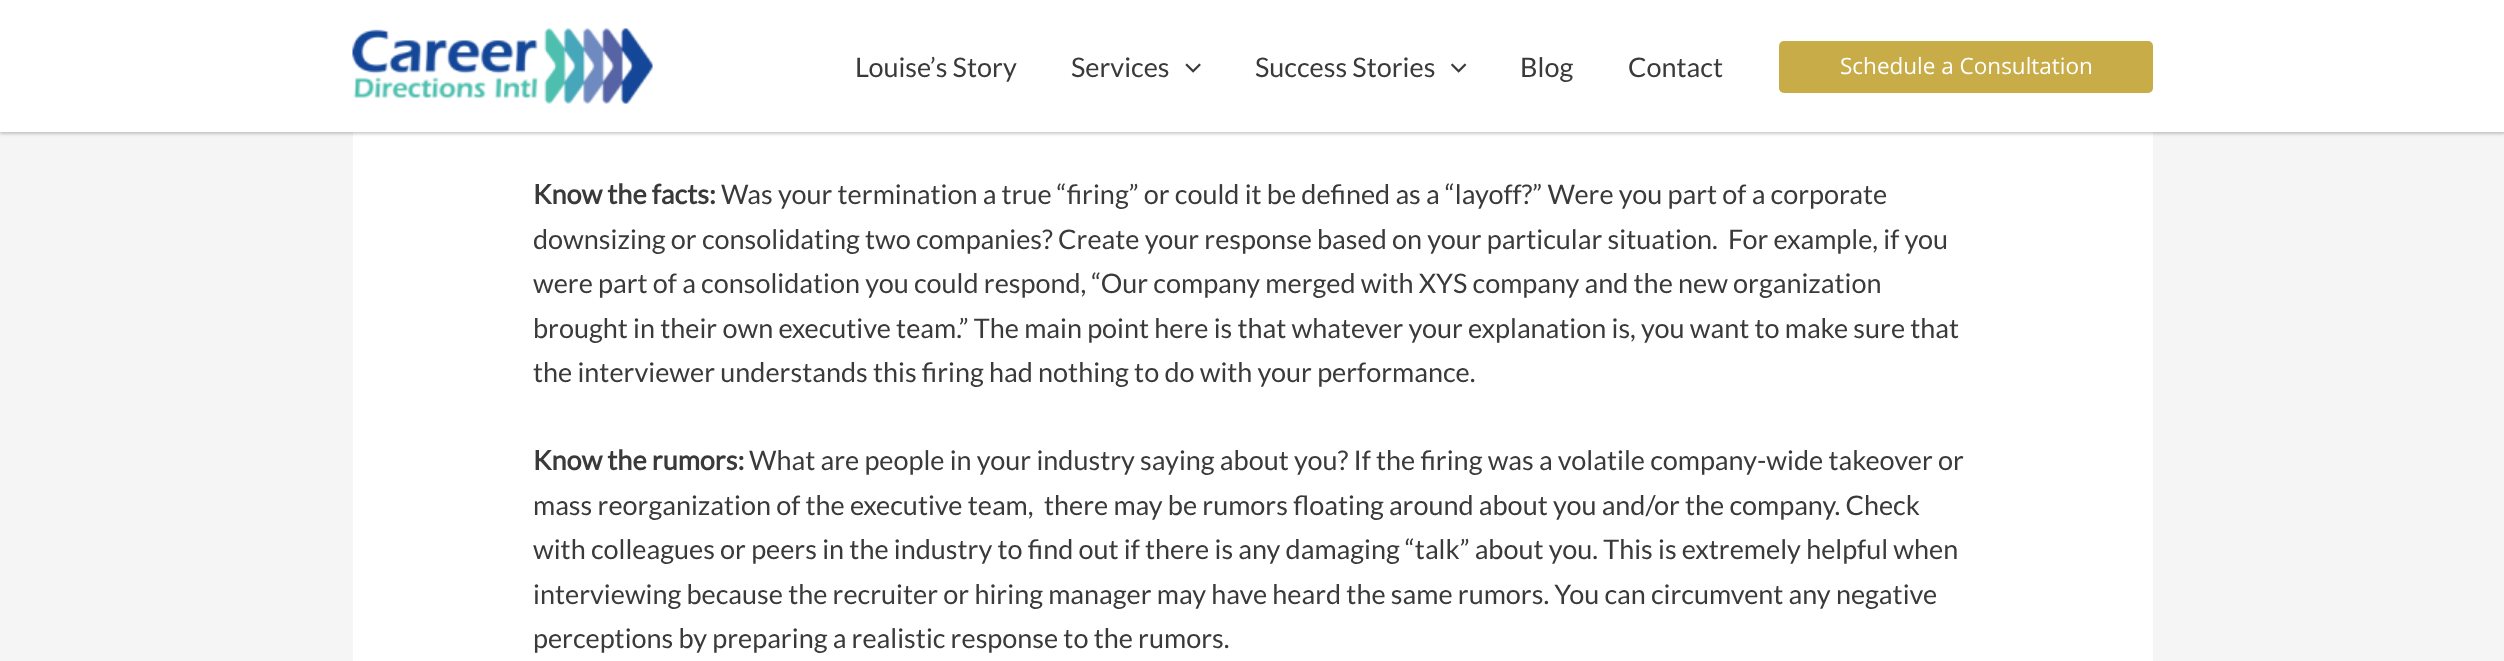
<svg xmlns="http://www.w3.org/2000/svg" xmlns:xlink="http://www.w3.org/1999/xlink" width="2504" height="661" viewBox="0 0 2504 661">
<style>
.cls-1{font:27px Lato;fill:#3a3a3a}
.cls-2{font:22.5px Open Sans;fill:#ffffff}
.cls-3{font:bold 27px Lato;fill:#3a3a3a}
</style>
<rect width="100%" height="100%" fill="#f5f5f5"/>
<rect fill="#ffffff" x="353" y="132" width="1800" height="529"/>
<rect fill="#000000" fill-opacity="0.2" filter="blur(1.5px)" x="0" y="2" width="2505" height="132"/>
<rect fill="#ffffff" x="0" y="0" width="2504" height="132"/>
<image xlink:href="image0.png" x="352" y="28" width="301" height="76"/>
<image xlink:href="image1.png" x="1185" y="63" width="16" height="10"/>
<image xlink:href="image2.png" x="1451" y="63" width="16" height="10"/>
<rect fill="#c8ac48" x="1779" y="41" width="374" height="52" rx="5"/>
<text class="cls-1" x="855" y="77">Louise’s Story</text>
<text class="cls-1" x="1071" y="77">Services</text>
<text class="cls-1" x="1255" y="77">Success Stories</text>
<text class="cls-1" x="1520" y="77">Blog</text>
<text class="cls-1" x="1628" y="77">Contact</text>
<text class="cls-2" x="1840" y="74">Schedule a Consultation</text>
<text class="cls-3" x="533" y="204">Know the facts:</text>
<text class="cls-1" x="721" y="204">Was your termination a true “firing” or could it be defined as a “layoff?” Were you part of a corporate</text>
<text class="cls-1" xml:space="preserve"><tspan x="533" y="249">downsizing or consolidating two companies? Create your response based on your particular situation.  For example, if you</tspan><tspan x="533" y="293">were part of a consolidation you could respond, “Our company merged with XYS company and the new organization</tspan><tspan x="533" y="338">brought in their own executive team.” The main point here is that whatever your explanation is, you want to make sure that</tspan><tspan x="533" y="382">the interviewer understands this firing had nothing to do with your performance.</tspan></text>
<text class="cls-3" x="533" y="470">Know the rumors:</text>
<text class="cls-1" x="749" y="470">What are people in your industry saying about you? If the firing was a volatile company-wide takeover or</text>
<text class="cls-1" xml:space="preserve"><tspan x="533" y="515">mass reorganization of the executive team,  there may be rumors floating around about you and/or the company. Check</tspan><tspan x="533" y="559">with colleagues or peers in the industry to find out if there is any damaging “talk” about you. This is extremely helpful when</tspan><tspan x="533" y="604">interviewing because the recruiter or hiring manager may have heard the same rumors. You can circumvent any negative</tspan><tspan x="533" y="648">perceptions by preparing a realistic response to the rumors.</tspan></text>
</svg>
